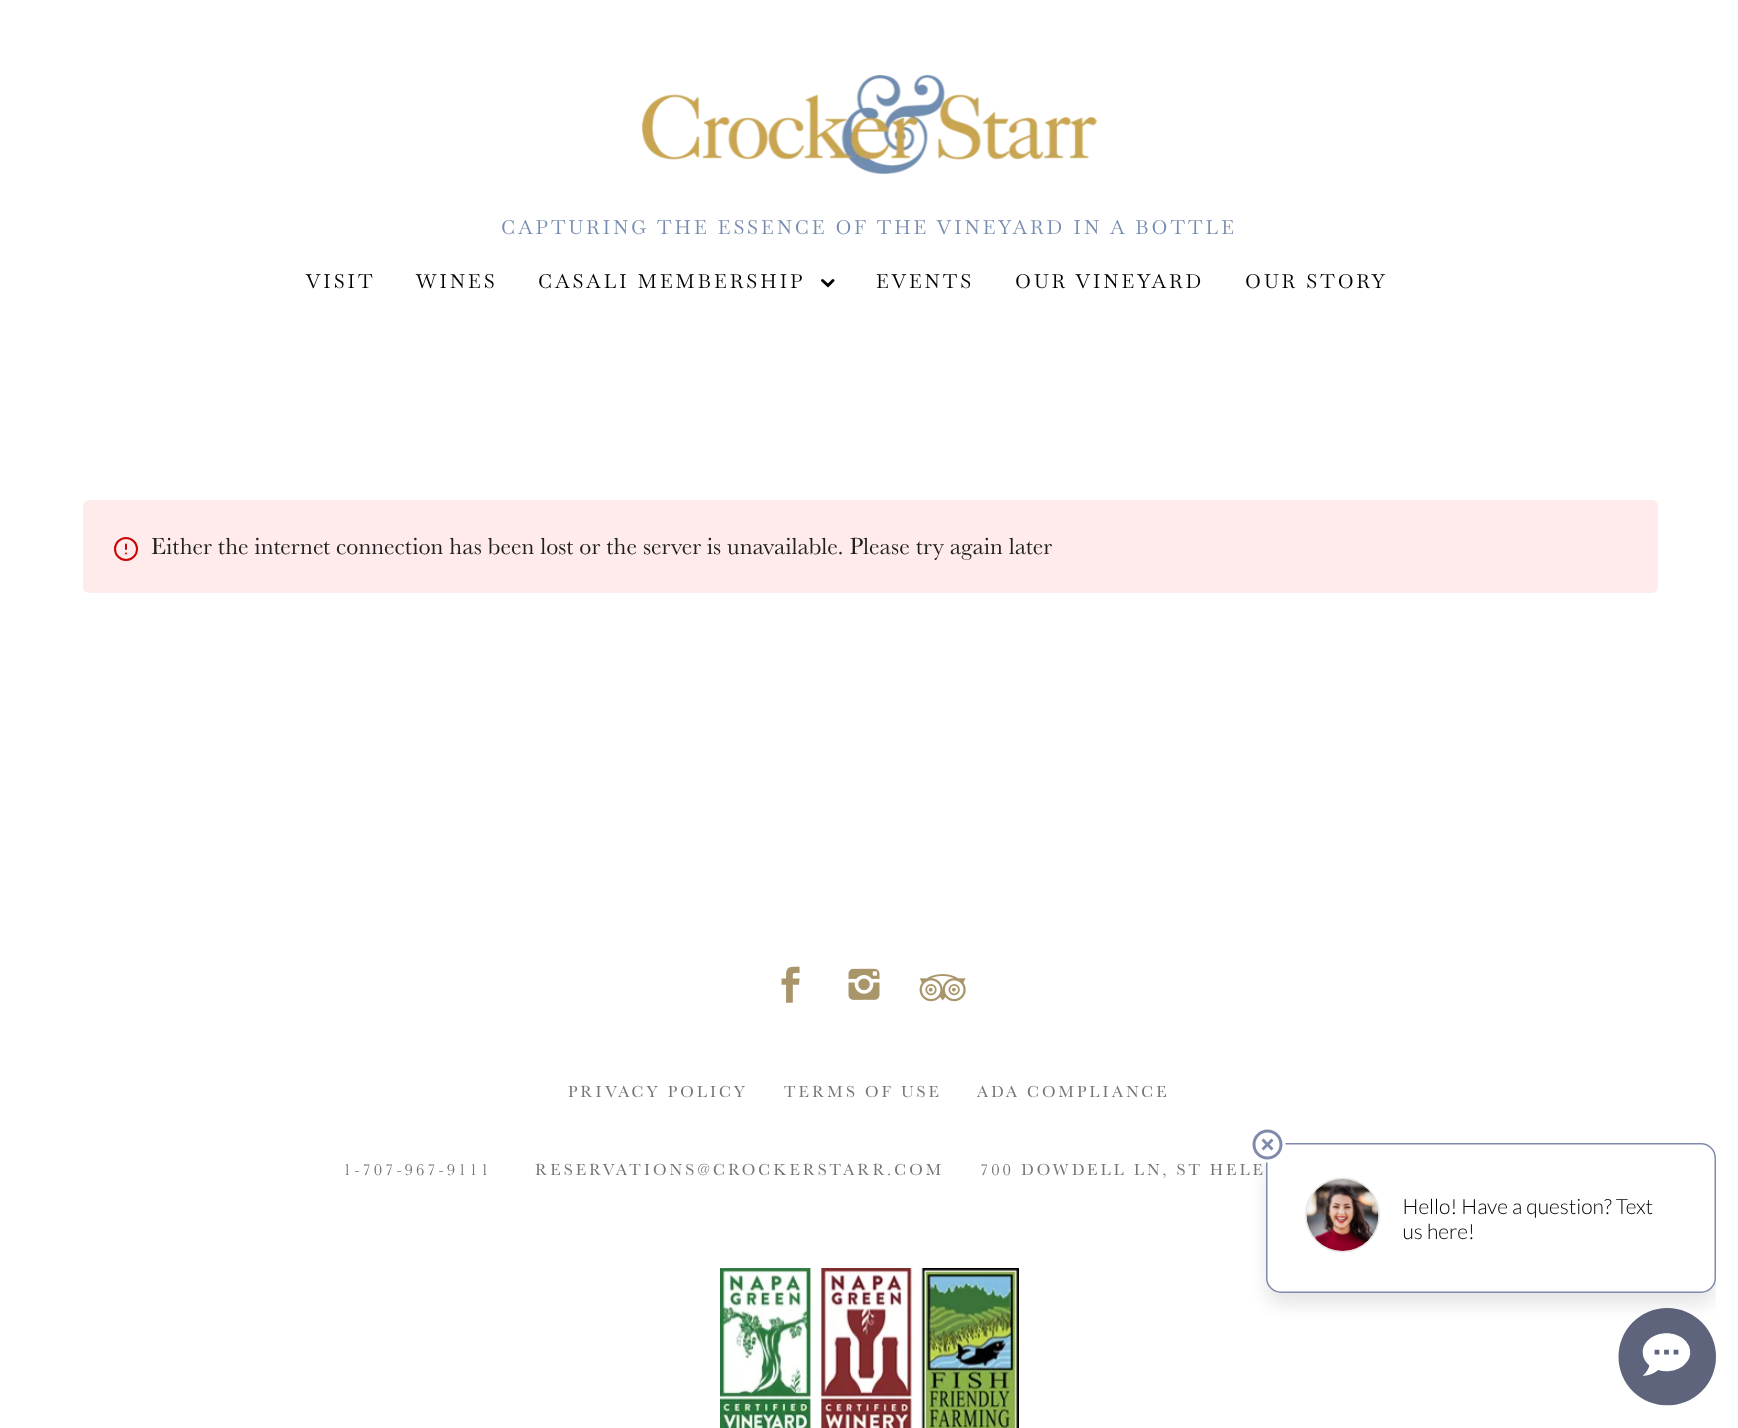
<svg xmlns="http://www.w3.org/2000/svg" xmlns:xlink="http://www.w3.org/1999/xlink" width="1738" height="1428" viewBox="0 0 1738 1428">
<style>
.cls-1{font:19.5px Baskervville;letter-spacing:3px;fill:#778db0}
.cls-2{font:19.5px Baskervville;letter-spacing:3px;fill:#000000}
.cls-3{font:24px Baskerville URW;fill:#202020}
.cls-4{font:16.5px Baskerville URW;letter-spacing:3px;fill:#757575}
</style>
<rect width="100%" height="100%" fill="#ffffff"/>
<image xlink:href="image0.png" x="642" y="75" width="455" height="99"/>
<path fill="none" stroke="#000000" stroke-width="3" stroke-linecap="round" d="M833 280.5L828 285.5L822.5 280.5"/>
<rect fill="#ffebeb" x="83" y="500" width="1575" height="93" rx="6"/>
<circle fill="none" stroke="#ca0505" stroke-width="2" cx="126" cy="549" r="11"/>
<path fill="none" stroke="#ca0505" stroke-width="2" stroke-linecap="round" stroke-linejoin="round" d="M126 544.5V549M126 553.5H126"/>
<image xlink:href="image1.png" x="781" y="966" width="19" height="37"/>
<image xlink:href="image2.png" x="848" y="968" width="32" height="32"/>
<image xlink:href="image3.png" x="919" y="974" width="47" height="28"/>
<image xlink:href="image4.png" x="720" y="1268" width="299" height="160"/>
<text class="cls-1" x="501" y="234">CAPTURING THE ESSENCE OF THE VINEYARD IN A BOTTLE</text>
<text class="cls-2" x="306" y="288">VISIT</text>
<text class="cls-2" x="416" y="288">WINES</text>
<text class="cls-2" x="538" y="288">CASALI MEMBERSHIP</text>
<text class="cls-2" x="876" y="288">EVENTS</text>
<text class="cls-2" x="1015" y="288">OUR VINEYARD</text>
<text class="cls-2" x="1245" y="288">OUR STORY</text>
<text class="cls-3" x="151" y="554">Either the internet connection has been lost or the server is unavailable. Please try again later</text>
<text class="cls-4" x="568" y="1097">PRIVACY POLICY</text>
<text class="cls-4" x="784" y="1097">TERMS OF USE</text>
<text class="cls-4" x="977" y="1097">ADA COMPLIANCE</text>
<text class="cls-4" x="343" y="1175">1-707-967-9111</text>
<text class="cls-4" x="535" y="1175">RESERVATIONS@CROCKERSTARR.COM</text>
<text class="cls-4" x="980" y="1175">700 DOWDELL LN, ST HELE</text>
<image xlink:href="image5.png" x="1252" y="1129" width="464" height="277"/>
</svg>
